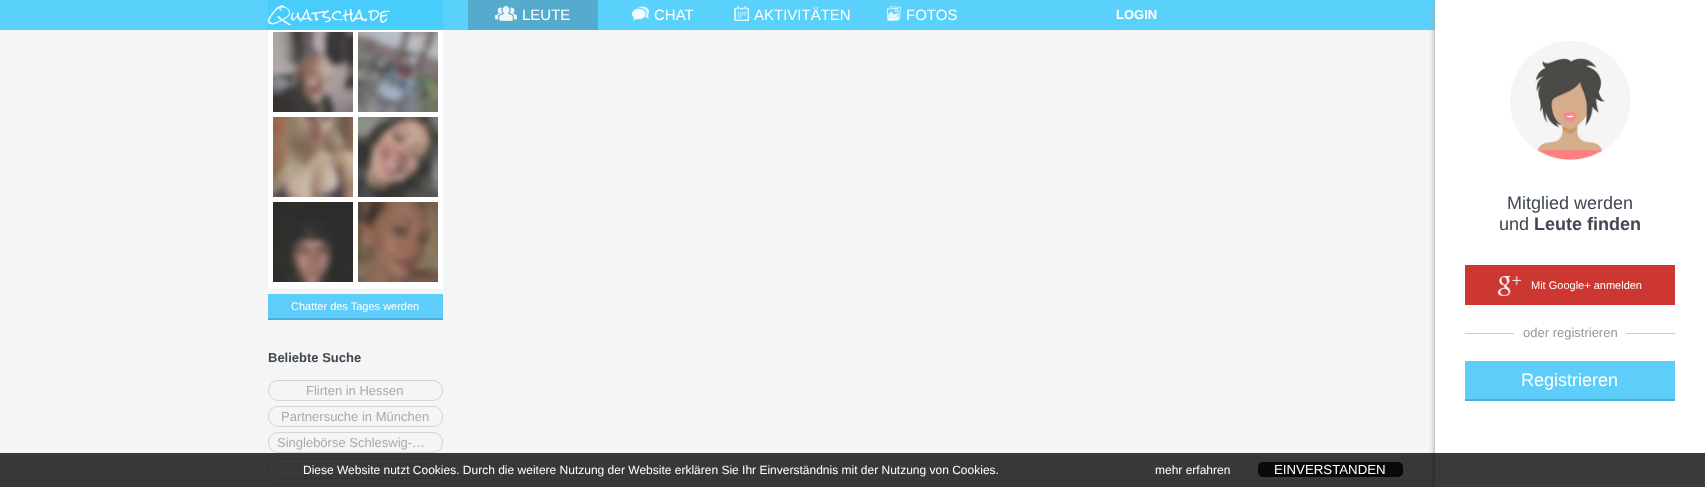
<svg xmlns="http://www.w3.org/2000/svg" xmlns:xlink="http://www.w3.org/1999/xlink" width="1705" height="487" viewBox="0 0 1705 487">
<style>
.cls-1{font:15px Liberation Sans;fill:#ffffff}
.cls-2{font:bold 13px Liberation Sans;fill:#ffffff}
.cls-3{font:11px Liberation Sans;fill:#ffffff}
.cls-4{font:bold 13px Liberation Sans;fill:#3f4752}
.cls-5{font:13px Liberation Sans;fill:#aaaaaa}
.cls-6{font:18px Liberation Sans;fill:#3f4752}
.cls-7{font:bold 18px Liberation Sans;fill:#3f4752}
.cls-8{font:13px Liberation Sans;fill:#979797}
.cls-9{font:18px Liberation Sans;fill:#ffffff}
.cls-10{font:12px Liberation Sans;fill:#ffffff}
.cls-11{font:13.25px Liberation Sans;fill:#ffffff}
</style>
<rect width="100%" height="100%" fill="#f5f5f5"/>
<rect fill="#59d1fa" x="0" y="0" width="1435" height="30"/>
<rect fill="#48ccf9" x="268" y="0" width="175" height="27"/>
<image xlink:href="image0.png" x="268" y="5" width="122" height="21"/>
<rect fill="#55abce" x="468" y="0" width="130" height="30"/>
<image xlink:href="image1.png" x="495" y="6" width="22" height="15"/>
<image xlink:href="image2.png" x="632" y="6" width="17" height="15"/>
<image xlink:href="image3.png" x="734" y="6" width="15" height="15"/>
<image xlink:href="image4.png" x="887" y="6" width="14" height="15"/>
<rect fill="#ffffff" x="268" y="30" width="175" height="259"/>
<rect fill="#4acefa" x="268" y="27" width="175" height="3"/>
<image xlink:href="image5.png" x="273" y="32" width="80" height="80"/>
<image xlink:href="image6.png" x="358" y="32" width="80" height="80"/>
<image xlink:href="image7.png" x="273" y="117" width="80" height="80"/>
<image xlink:href="image8.png" x="358" y="117" width="80" height="80"/>
<image xlink:href="image9.png" x="273" y="202" width="80" height="80"/>
<image xlink:href="image10.png" x="358" y="202" width="80" height="80"/>
<rect fill="#5ecdf9" x="268" y="294" width="175" height="24"/>
<rect fill="#4aafdb" x="268" y="318" width="175" height="2"/>
<rect fill="none" stroke="#d5d5d5" x="268.5" y="380.5" width="174" height="20" rx="9.5"/>
<rect fill="none" stroke="#d5d5d5" x="268.5" y="406.5" width="174" height="20" rx="9.5"/>
<rect fill="none" stroke="#d5d5d5" x="268.5" y="432.5" width="174" height="20" rx="9.5"/>
<rect fill="none" stroke="#d5d5d5" x="268.5" y="458.5" width="174" height="20" rx="9.5"/>
<rect fill="none" stroke="#d5d5d5" x="268.5" y="484.5" width="174" height="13" rx="9.5"/>
<rect fill="#aaaaaa" filter="blur(2.5px)" x="1434" y="4" width="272" height="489"/>
<rect fill="#ffffff" x="1435" y="0" width="270" height="487"/>
<image xlink:href="image11.png" x="1510" y="41" width="120" height="119"/>
<rect fill="#cc3732" x="1465" y="265" width="210" height="40"/>
<image xlink:href="image12.png" x="1497" y="276" width="25" height="20"/>
<rect fill="#cccccc" x="1465" y="333" width="49" height="1"/>
<rect fill="#cccccc" x="1626" y="333" width="49" height="1"/>
<rect fill="#5ecdf9" x="1465" y="361" width="210" height="38"/>
<rect fill="#4aafdb" x="1465" y="399" width="210" height="2"/>
<rect fill="#08090b" fill-opacity="0.8" x="0" y="453" width="1705" height="34"/>
<rect fill="#08090b" x="1258" y="462" width="145" height="15" rx="5"/>
<text class="cls-1" x="522" y="20">LEUTE</text>
<text class="cls-1" x="654" y="20">CHAT</text>
<text class="cls-1" x="754" y="20">AKTIVITÄTEN</text>
<text class="cls-1" x="906" y="20">FOTOS</text>
<text class="cls-2" x="1116" y="19">LOGIN</text>
<text class="cls-3" x="291" y="310">Chatter des Tages werden</text>
<text class="cls-4" x="268" y="362">Beliebte Suche</text>
<text class="cls-5" x="306" y="395">Flirten in Hessen</text>
<text class="cls-5" x="281" y="421">Partnersuche in München</text>
<text class="cls-5" x="277" y="447">Singlebörse Schleswig-…</text>
<text class="cls-6" x="1507" y="209">Mitglied werden</text>
<text class="cls-6" x="1499" y="230">und</text>
<text class="cls-7" x="1534" y="230">Leute finden</text>
<text class="cls-3" x="1531" y="289">Mit Google+ anmelden</text>
<text class="cls-8" x="1523" y="337">oder registrieren</text>
<text class="cls-9" x="1521" y="386">Registrieren</text>
<text class="cls-10" x="303" y="474">Diese Website nutzt Cookies. Durch die weitere Nutzung der Website erklären Sie Ihr Einverständnis mit der Nutzung von Cookies.</text>
<text class="cls-10" x="1155" y="474">mehr erfahren</text>
<text class="cls-11" x="1274" y="474">EINVERSTANDEN</text>
</svg>
